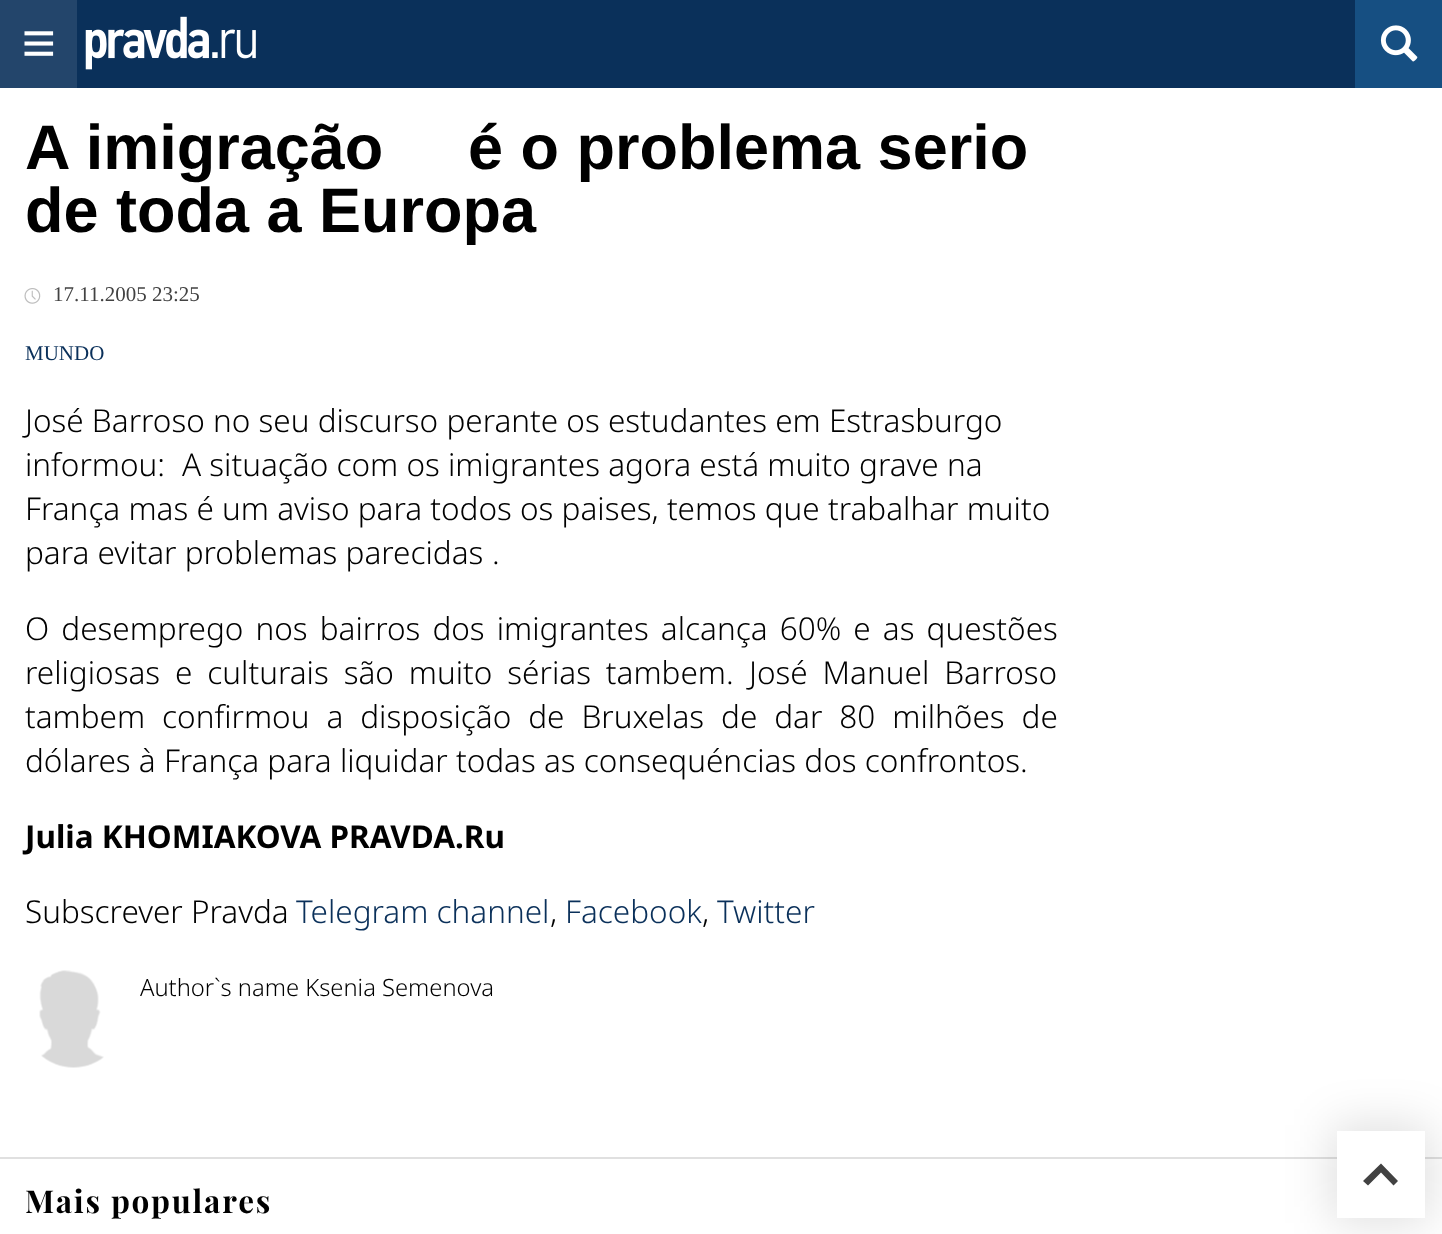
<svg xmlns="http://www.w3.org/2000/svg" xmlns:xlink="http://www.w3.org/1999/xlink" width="1442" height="1234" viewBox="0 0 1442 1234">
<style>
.cls-1{font:bold 63px Liberation Sans;fill:#000000}
.cls-2{font:21px Liberation Serif;fill:#424242}
.cls-3{font:21px Liberation Serif;fill:#0a305a}
.cls-4{font:300 31.5px Noto Sans;fill:#000000}
.cls-5{font:bold 31.5px Noto Sans;fill:#000000}
.cls-6{font:300 31.5px Noto Sans;fill:#0a305a}
.cls-7{font:300 23.75px Noto Sans;fill:#000000}
.cls-8{font:bold 31.5px Playfair Display;letter-spacing:1.75px;fill:#000000}
</style>
<rect width="100%" height="100%" fill="#ffffff"/>
<rect fill="#0a305a" x="77" y="0" width="1278" height="88"/>
<rect fill="#23456b" x="0" y="0" width="77" height="88"/>
<image xlink:href="image0.png" x="24" y="31" width="30" height="25"/>
<image xlink:href="image1.png" x="85" y="16" width="171" height="54"/>
<rect fill="#164f82" x="1355" y="0" width="87" height="88"/>
<image xlink:href="image2.png" x="1380" y="25" width="38" height="37"/>
<rect fill="#e0e0e0" x="0" y="1157" width="1442" height="2"/>
<image xlink:href="image3.png" x="24" y="288" width="17" height="16"/>
<image xlink:href="image4.png" x="39" y="970" width="65" height="98"/>
<rect fill="#000000" fill-opacity="0.13" filter="blur(23.5px)" x="1332" y="1125" width="98" height="98"/>
<rect fill="#ffffff" x="1337" y="1131" width="88" height="87"/>
<path fill="#424242" d="M1381 1163.5L1398 1181L1393.5 1185.5L1381 1172.5L1368 1185.5L1363 1181Z"/>
<text class="cls-1" x="25" y="169">A imigração</text>
<text class="cls-1" x="468" y="169">é o problema serio</text>
<text class="cls-1" x="25" y="232">de toda a Europa</text>
<text class="cls-2" x="53" y="301">17.11.2005 23:25</text>
<text class="cls-3" x="25" y="360">MUNDO</text>
<text class="cls-4"><tspan x="25" y="432">José Barroso no seu discurso perante os estudantes em Estrasburgo</tspan><tspan x="25" y="476">informou:</tspan></text>
<text class="cls-4" x="182" y="476">A situação com os imigrantes agora está muito grave na</text>
<text class="cls-4"><tspan x="25" y="520">França mas é um aviso para todos os paises, temos que trabalhar muito</tspan><tspan x="25" y="564">para evitar problemas parecidas</tspan></text>
<text class="cls-4" x="492" y="564">.</text>
<text class="cls-4"><tspan x="25" y="640" word-spacing="3.9">O desemprego nos bairros dos imigrantes alcança 60% e as questões</tspan><tspan x="25" y="684" word-spacing="6.75">religiosas e culturais são muito sérias tambem.</tspan></text>
<text class="cls-4" x="749" y="684" word-spacing="6.75">José Manuel Barroso</text>
<text class="cls-4"><tspan x="25" y="728" word-spacing="8.75">tambem confirmou a disposição de Bruxelas de dar 80 milhões de</tspan><tspan x="25" y="772">dólares à França para liquidar todas as consequéncias dos confrontos.</tspan></text>
<text class="cls-5" x="25" y="848">Julia KHOMIAKOVA PRAVDA.Ru</text>
<text class="cls-4" x="25" y="923">Subscrever Pravda</text>
<text class="cls-6" x="296" y="923">Telegram channel</text>
<text class="cls-4" x="550" y="923">,</text>
<text class="cls-6" x="565" y="923">Facebook</text>
<text class="cls-4" x="702" y="923">,</text>
<text class="cls-6" x="717" y="923">Twitter</text>
<text class="cls-7" x="140" y="996">Author`s name Ksenia Semenova</text>
<text class="cls-8" x="25" y="1213">Mais populares</text>
</svg>
